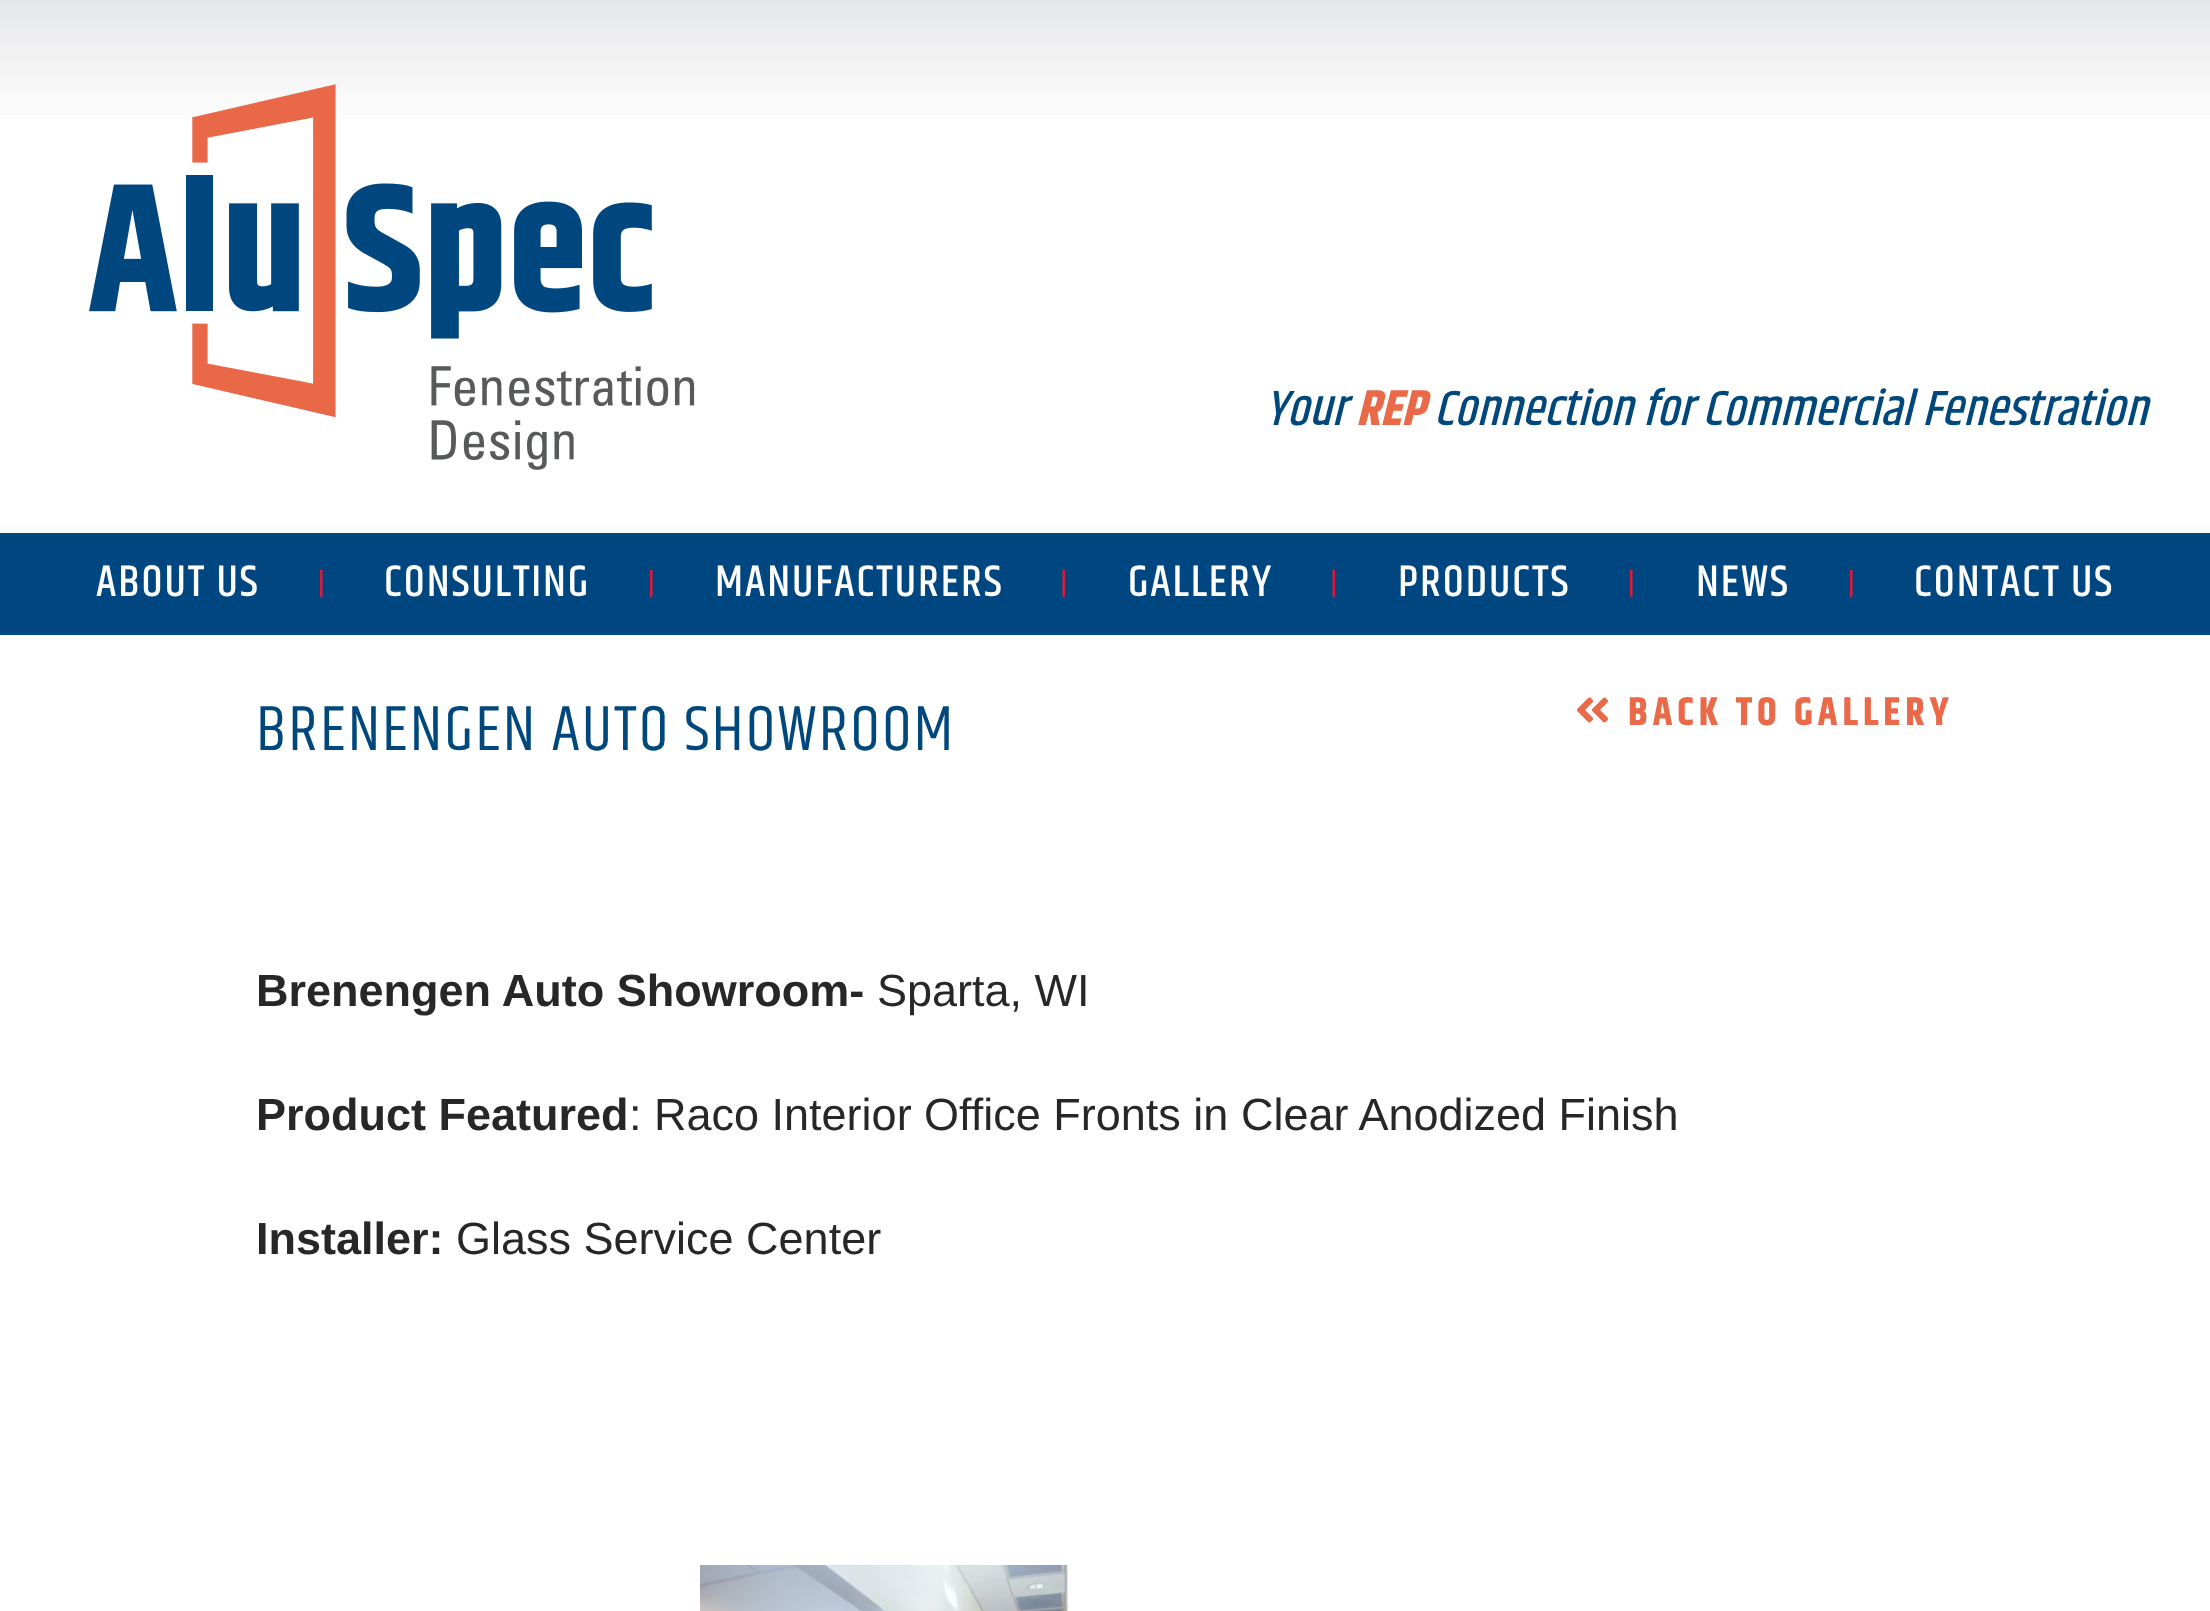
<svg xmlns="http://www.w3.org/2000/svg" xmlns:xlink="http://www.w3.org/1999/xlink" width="2210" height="1611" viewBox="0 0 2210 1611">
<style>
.cls-1{font:italic 500 50px Khand;fill:#00487b}
.cls-2{font:italic bold 50px Khand;fill:#ea6948}
.cls-3{font:500 45px Khand;letter-spacing:1.9px;fill:#ffffff}
.cls-4{font:65px Khand;letter-spacing:1.9px;fill:#00487b}
.cls-5{font:bold 40px Khand;letter-spacing:5px;fill:#ea6948}
.cls-6{font:bold 45px Liberation Sans;fill:#272727}
.cls-7{font:45px Liberation Sans;fill:#272727}
</style>
<rect width="100%" height="100%" fill="#ffffff"/>
<image xlink:href="image0.png" x="0" y="0" width="2210" height="533"/>
<image xlink:href="image1.png" x="89" y="84" width="606" height="386"/>
<rect fill="#004680" x="0" y="533" width="2210" height="102"/>
<image xlink:href="image2.png" x="320" y="570" width="3" height="28"/>
<image xlink:href="image2.png" x="650" y="570" width="3" height="28"/>
<image xlink:href="image3.png" x="1062" y="570" width="3" height="28"/>
<image xlink:href="image3.png" x="1332" y="570" width="3" height="28"/>
<image xlink:href="image2.png" x="1630" y="570" width="3" height="28"/>
<image xlink:href="image2.png" x="1850" y="570" width="3" height="28"/>
<image xlink:href="image4.png" x="1577" y="697" width="31" height="26"/>
<image xlink:href="image5.png" x="700" y="1565" width="368" height="46"/>
<text class="cls-1" x="1265" y="425">Your</text>
<text class="cls-2" x="1356" y="425">REP</text>
<text class="cls-1" x="1434" y="425">Connection for Commercial Fenestration</text>
<text class="cls-3" x="96" y="596">ABOUT US</text>
<text class="cls-3" x="384" y="596">CONSULTING</text>
<text class="cls-3" x="715" y="596">MANUFACTURERS</text>
<text class="cls-3" x="1128" y="596">GALLERY</text>
<text class="cls-3" x="1398" y="596">PRODUCTS</text>
<text class="cls-3" x="1696" y="596">NEWS</text>
<text class="cls-3" x="1914" y="596">CONTACT US</text>
<text class="cls-4" x="256" y="750">BRENENGEN AUTO SHOWROOM</text>
<text class="cls-5" x="1628" y="725">BACK TO GALLERY</text>
<text class="cls-6" x="256" y="1006">Brenengen Auto Showroom-</text>
<text class="cls-7" x="877" y="1006">Sparta, WI</text>
<text class="cls-6" x="256" y="1130">Product Featured</text>
<text class="cls-7" x="629" y="1130">: Raco Interior Office Fronts in Clear Anodized Finish</text>
<text class="cls-6" x="256" y="1254">Installer:</text>
<text class="cls-7" x="456" y="1254">Glass Service Center</text>
</svg>
